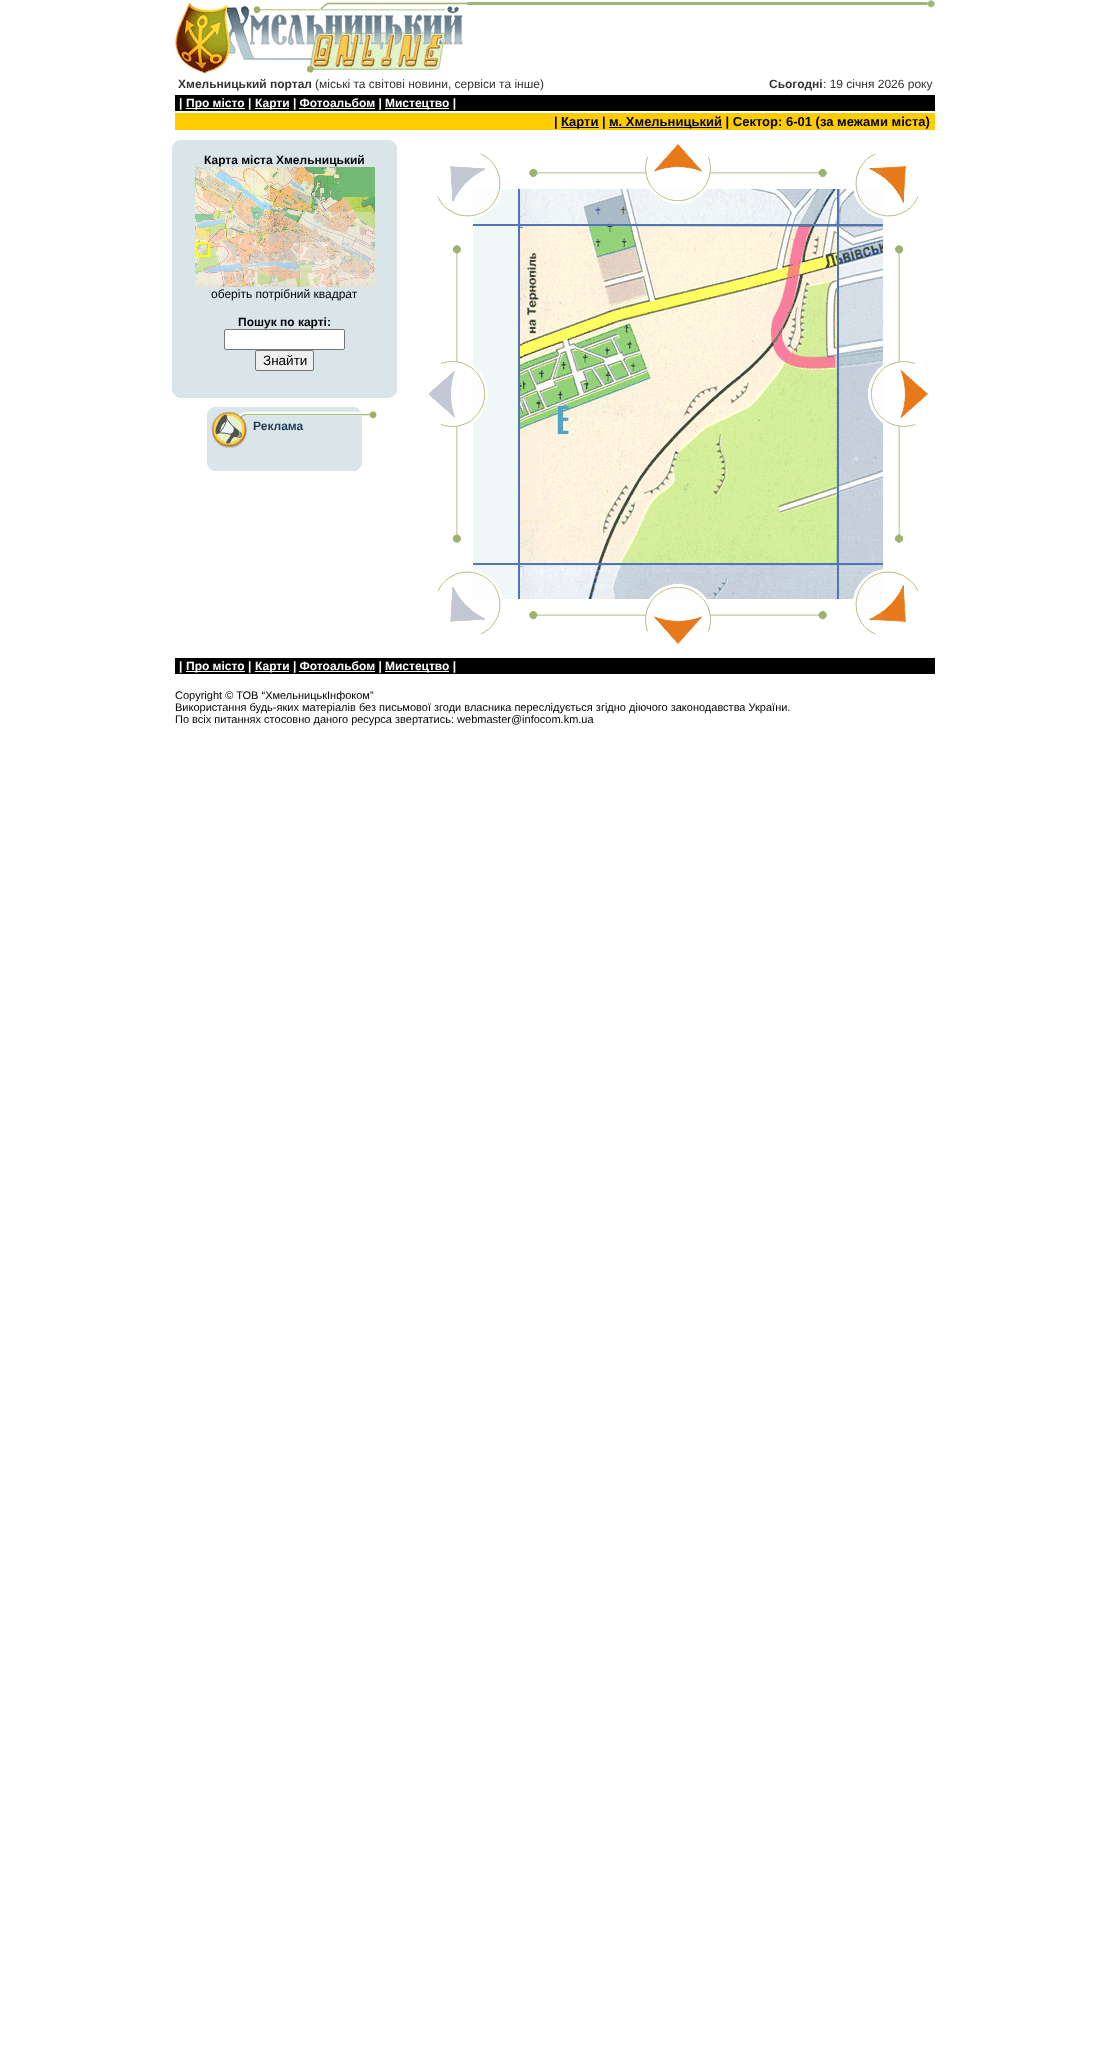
<svg xmlns="http://www.w3.org/2000/svg" xmlns:xlink="http://www.w3.org/1999/xlink" width="1110" height="2071" viewBox="0 0 1110 2071">
<style>
.cls-1{font:bold 12px Liberation Sans;fill:#333333}
.cls-2{font:12px Liberation Sans;fill:#333333}
.cls-3{font:bold 12px Liberation Sans;fill:#ffffff}
.cls-4{font:bold 13px Liberation Sans;fill:#000000}
.cls-5{font:bold 12px Liberation Sans;fill:#000000}
.cls-6{font:12px Liberation Sans;fill:#000000}
.cls-7{font:13.5px Liberation Sans;fill:#000000}
.cls-8{font:bold 12px Liberation Sans;fill:#1e3c50}
.cls-9{font:11px Liberation Sans;fill:#000000}
</style>
<rect width="100%" height="100%" fill="#ffffff"/>
<image xlink:href="image0.png" x="186" y="3" width="44" height="6"/>
<image xlink:href="image1.png" x="230" y="6" width="30" height="3"/>
<image xlink:href="image2.png" x="320" y="2" width="147" height="7"/>
<rect fill="#a4b478" x="467" y="2" width="468" height="3"/>
<image xlink:href="image3.png" x="927" y="0" width="8" height="8"/>
<image xlink:href="image4.png" x="175" y="9" width="55" height="60"/>
<image xlink:href="image5.png" x="230" y="9" width="76" height="51"/>
<image xlink:href="image6.png" x="306" y="9" width="157" height="60"/>
<image xlink:href="image7.png" x="194" y="69" width="22" height="5"/>
<image xlink:href="image8.png" x="306" y="69" width="132" height="4"/>
<rect fill="#000000" x="175" y="95" width="760" height="16"/>
<rect fill="#ffffff" x="186" y="108" width="59" height="1"/>
<rect fill="#ffffff" x="255" y="108" width="34" height="1"/>
<rect fill="#ffffff" x="299" y="108" width="76" height="1"/>
<rect fill="#ffffff" x="385" y="108" width="64" height="1"/>
<rect fill="#ffcc00" x="175" y="113" width="760" height="17"/>
<rect fill="#000000" x="561" y="127" width="38" height="1"/>
<rect fill="#000000" x="609" y="127" width="113" height="1"/>
<image xlink:href="image9.png" x="172" y="140" width="43" height="7"/>
<rect fill="#dae5ea" x="215" y="140" width="70" height="7"/>
<image xlink:href="image10.png" x="285" y="140" width="112" height="7"/>
<rect fill="#dae5ea" x="172" y="147" width="225" height="244"/>
<image xlink:href="image11.png" x="195" y="167" width="15" height="15"/>
<image xlink:href="image12.png" x="210" y="167" width="15" height="15"/>
<image xlink:href="image13.png" x="225" y="167" width="15" height="15"/>
<image xlink:href="image14.png" x="240" y="167" width="15" height="15"/>
<image xlink:href="image15.png" x="255" y="167" width="15" height="15"/>
<image xlink:href="image16.png" x="270" y="167" width="15" height="15"/>
<image xlink:href="image17.png" x="285" y="167" width="15" height="15"/>
<image xlink:href="image18.png" x="300" y="167" width="15" height="15"/>
<image xlink:href="image19.png" x="315" y="167" width="15" height="15"/>
<image xlink:href="image20.png" x="330" y="167" width="15" height="15"/>
<rect fill="#74ba74" x="345" y="167" width="30" height="15"/>
<image xlink:href="image21.png" x="195" y="182" width="15" height="15"/>
<image xlink:href="image22.png" x="210" y="182" width="15" height="15"/>
<image xlink:href="image23.png" x="225" y="182" width="15" height="15"/>
<image xlink:href="image24.png" x="240" y="182" width="15" height="15"/>
<image xlink:href="image25.png" x="255" y="182" width="15" height="15"/>
<image xlink:href="image26.png" x="270" y="182" width="15" height="15"/>
<image xlink:href="image27.png" x="285" y="182" width="15" height="15"/>
<image xlink:href="image28.png" x="300" y="182" width="15" height="15"/>
<image xlink:href="image29.png" x="315" y="182" width="15" height="15"/>
<image xlink:href="image30.png" x="330" y="182" width="15" height="15"/>
<rect fill="#74ba74" x="345" y="182" width="30" height="15"/>
<image xlink:href="image31.png" x="195" y="197" width="15" height="15"/>
<image xlink:href="image32.png" x="210" y="197" width="15" height="15"/>
<image xlink:href="image33.png" x="225" y="197" width="15" height="15"/>
<image xlink:href="image34.png" x="240" y="197" width="15" height="15"/>
<image xlink:href="image35.png" x="255" y="197" width="15" height="15"/>
<image xlink:href="image36.png" x="270" y="197" width="15" height="15"/>
<image xlink:href="image37.png" x="285" y="197" width="15" height="15"/>
<image xlink:href="image38.png" x="300" y="197" width="15" height="15"/>
<image xlink:href="image39.png" x="315" y="197" width="15" height="15"/>
<image xlink:href="image40.png" x="330" y="197" width="15" height="15"/>
<image xlink:href="image41.png" x="345" y="197" width="15" height="15"/>
<image xlink:href="image42.png" x="360" y="197" width="15" height="15"/>
<image xlink:href="image43.png" x="195" y="212" width="15" height="15"/>
<image xlink:href="image44.png" x="210" y="212" width="15" height="15"/>
<image xlink:href="image45.png" x="225" y="212" width="15" height="15"/>
<image xlink:href="image46.png" x="240" y="212" width="15" height="15"/>
<image xlink:href="image47.png" x="255" y="212" width="15" height="15"/>
<image xlink:href="image48.png" x="270" y="212" width="15" height="15"/>
<image xlink:href="image49.png" x="285" y="212" width="15" height="15"/>
<image xlink:href="image50.png" x="300" y="212" width="15" height="15"/>
<image xlink:href="image51.png" x="315" y="212" width="15" height="15"/>
<image xlink:href="image52.png" x="330" y="212" width="15" height="15"/>
<image xlink:href="image53.png" x="345" y="212" width="15" height="15"/>
<image xlink:href="image54.png" x="360" y="212" width="15" height="15"/>
<image xlink:href="image55.png" x="195" y="227" width="15" height="15"/>
<image xlink:href="image56.png" x="210" y="227" width="15" height="15"/>
<image xlink:href="image57.png" x="225" y="227" width="15" height="15"/>
<image xlink:href="image58.png" x="240" y="227" width="15" height="15"/>
<image xlink:href="image59.png" x="255" y="227" width="15" height="15"/>
<image xlink:href="image60.png" x="270" y="227" width="15" height="15"/>
<image xlink:href="image61.png" x="285" y="227" width="15" height="15"/>
<image xlink:href="image62.png" x="300" y="227" width="15" height="15"/>
<image xlink:href="image63.png" x="315" y="227" width="15" height="15"/>
<image xlink:href="image64.png" x="330" y="227" width="15" height="15"/>
<image xlink:href="image65.png" x="345" y="227" width="15" height="15"/>
<image xlink:href="image66.png" x="360" y="227" width="15" height="15"/>
<image xlink:href="image67.png" x="195" y="242" width="15" height="15"/>
<image xlink:href="image68.png" x="210" y="242" width="15" height="15"/>
<image xlink:href="image69.png" x="225" y="242" width="15" height="15"/>
<image xlink:href="image70.png" x="240" y="242" width="15" height="15"/>
<image xlink:href="image71.png" x="255" y="242" width="15" height="15"/>
<image xlink:href="image72.png" x="270" y="242" width="15" height="15"/>
<image xlink:href="image73.png" x="285" y="242" width="15" height="15"/>
<image xlink:href="image74.png" x="300" y="242" width="15" height="15"/>
<image xlink:href="image75.png" x="315" y="242" width="15" height="15"/>
<image xlink:href="image76.png" x="330" y="242" width="15" height="15"/>
<image xlink:href="image77.png" x="345" y="242" width="15" height="15"/>
<image xlink:href="image78.png" x="360" y="242" width="15" height="15"/>
<image xlink:href="image79.png" x="195" y="257" width="15" height="15"/>
<image xlink:href="image80.png" x="210" y="257" width="15" height="15"/>
<image xlink:href="image81.png" x="225" y="257" width="15" height="15"/>
<image xlink:href="image82.png" x="240" y="257" width="15" height="15"/>
<image xlink:href="image83.png" x="255" y="257" width="15" height="15"/>
<image xlink:href="image84.png" x="270" y="257" width="15" height="15"/>
<image xlink:href="image85.png" x="285" y="257" width="15" height="15"/>
<image xlink:href="image86.png" x="300" y="257" width="15" height="15"/>
<image xlink:href="image87.png" x="315" y="257" width="15" height="15"/>
<image xlink:href="image88.png" x="330" y="257" width="15" height="15"/>
<image xlink:href="image89.png" x="345" y="257" width="15" height="15"/>
<image xlink:href="image90.png" x="360" y="257" width="15" height="15"/>
<image xlink:href="image91.png" x="195" y="272" width="15" height="15"/>
<image xlink:href="image92.png" x="210" y="272" width="15" height="15"/>
<image xlink:href="image93.png" x="225" y="272" width="15" height="15"/>
<image xlink:href="image94.png" x="240" y="272" width="15" height="15"/>
<image xlink:href="image95.png" x="255" y="272" width="15" height="15"/>
<image xlink:href="image96.png" x="270" y="272" width="15" height="15"/>
<image xlink:href="image97.png" x="285" y="272" width="15" height="15"/>
<image xlink:href="image98.png" x="300" y="272" width="15" height="15"/>
<image xlink:href="image99.png" x="315" y="272" width="15" height="15"/>
<image xlink:href="image100.png" x="330" y="272" width="15" height="15"/>
<image xlink:href="image101.png" x="345" y="272" width="15" height="15"/>
<image xlink:href="image102.png" x="360" y="272" width="15" height="15"/>
<rect fill="#ffffff" stroke="#767676" x="224.5" y="329.5" width="120" height="20" rx="1.5"/>
<rect fill="#efefef" stroke="#767676" x="255.5" y="350.5" width="58" height="20" rx="1.5"/>
<image xlink:href="image103.png" x="172" y="391" width="43" height="7"/>
<rect fill="#dae5ea" x="215" y="391" width="70" height="7"/>
<image xlink:href="image104.png" x="285" y="391" width="112" height="7"/>
<image xlink:href="image105.png" x="207" y="407" width="43" height="43"/>
<image xlink:href="image106.png" x="250" y="407" width="112" height="12"/>
<image xlink:href="image107.png" x="356" y="407" width="6" height="5"/>
<image xlink:href="image108.png" x="362" y="411" width="15" height="8"/>
<rect fill="#dae5ea" x="250" y="419" width="112" height="31"/>
<rect fill="#dae5ea" x="207" y="450" width="155" height="14"/>
<image xlink:href="image103.png" x="207" y="464" width="43" height="7"/>
<image xlink:href="image104.png" x="250" y="464" width="112" height="7"/>
<image xlink:href="image109.png" x="450" y="166" width="23" height="23"/>
<image xlink:href="image110.png" x="473" y="153" width="65" height="36"/>
<image xlink:href="image111.png" x="538" y="172" width="106" height="2"/>
<image xlink:href="image112.png" x="644" y="144" width="68" height="45"/>
<image xlink:href="image111.png" x="712" y="172" width="106" height="2"/>
<image xlink:href="image113.png" x="818" y="153" width="65" height="36"/>
<image xlink:href="image114.png" x="883" y="166" width="23" height="23"/>
<image xlink:href="image115.png" x="437" y="189" width="36" height="65"/>
<image xlink:href="image116.png" x="473" y="189" width="410" height="410"/>
<image xlink:href="image117.png" x="883" y="189" width="36" height="65"/>
<image xlink:href="image118.png" x="456" y="254" width="2" height="106"/>
<image xlink:href="image119.png" x="898" y="254" width="2" height="106"/>
<image xlink:href="image120.png" x="429" y="360" width="44" height="68"/>
<image xlink:href="image121.png" x="883" y="360" width="45" height="68"/>
<image xlink:href="image118.png" x="456" y="428" width="2" height="106"/>
<image xlink:href="image119.png" x="898" y="428" width="2" height="106"/>
<image xlink:href="image122.png" x="437" y="534" width="36" height="65"/>
<image xlink:href="image123.png" x="883" y="534" width="36" height="65"/>
<image xlink:href="image124.png" x="450" y="599" width="23" height="23"/>
<image xlink:href="image125.png" x="473" y="599" width="65" height="36"/>
<image xlink:href="image126.png" x="538" y="614" width="106" height="2"/>
<image xlink:href="image127.png" x="644" y="599" width="68" height="45"/>
<image xlink:href="image126.png" x="712" y="614" width="106" height="2"/>
<image xlink:href="image128.png" x="818" y="599" width="65" height="36"/>
<image xlink:href="image129.png" x="883" y="599" width="23" height="23"/>
<rect fill="#000000" x="175" y="658" width="760" height="16"/>
<rect fill="#ffffff" x="186" y="671" width="59" height="1"/>
<rect fill="#ffffff" x="255" y="671" width="34" height="1"/>
<rect fill="#ffffff" x="299" y="671" width="76" height="1"/>
<rect fill="#ffffff" x="385" y="671" width="64" height="1"/>
<text class="cls-1" x="178" y="88">Хмельницький портал</text>
<text class="cls-2" x="315" y="88">(міські та світові новини, сервіси та інше)</text>
<text class="cls-1" x="769" y="88">Сьогоднi</text>
<text class="cls-2" x="823" y="88">: 19 сiчня 2026 року</text>
<text class="cls-3" x="179" y="107">|</text>
<text class="cls-3" x="186" y="107">Про мiсто |</text>
<text class="cls-3" x="255" y="107">Карти | Фотоальбом |</text>
<text class="cls-3" x="385" y="107">Мистецтво |</text>
<text class="cls-4" x="554" y="126">|</text>
<text class="cls-4" x="561" y="126">Карти |</text>
<text class="cls-4" x="609" y="126">м. Хмельницький | Сектор: 6-01 (за межами міста)</text>
<text class="cls-5" x="204" y="164">Карта мiста Хмельницький</text>
<text class="cls-6" x="211" y="298">оберіть потрібний квадрат</text>
<text class="cls-5" x="238" y="326">Пошук по карті:</text>
<text class="cls-7" x="263" y="365">Знайти</text>
<text class="cls-8" x="253" y="430">Реклама</text>
<text class="cls-3" x="179" y="670">|</text>
<text class="cls-3" x="186" y="670">Про мiсто |</text>
<text class="cls-3" x="255" y="670">Карти | Фотоальбом |</text>
<text class="cls-3" x="385" y="670">Мистецтво |</text>
<text class="cls-9"><tspan x="175" y="699">Copyright © ТОВ “ХмельницькIнфоком”</tspan><tspan x="175" y="711">Використання будь-яких матеріалів без письмової згоди власника переслідується згідно діючого законодавства України.</tspan><tspan x="175" y="723">По всіх питанняx стосовно даного ресурса звертатись: webmaster@infocom.km.ua</tspan></text>
</svg>
